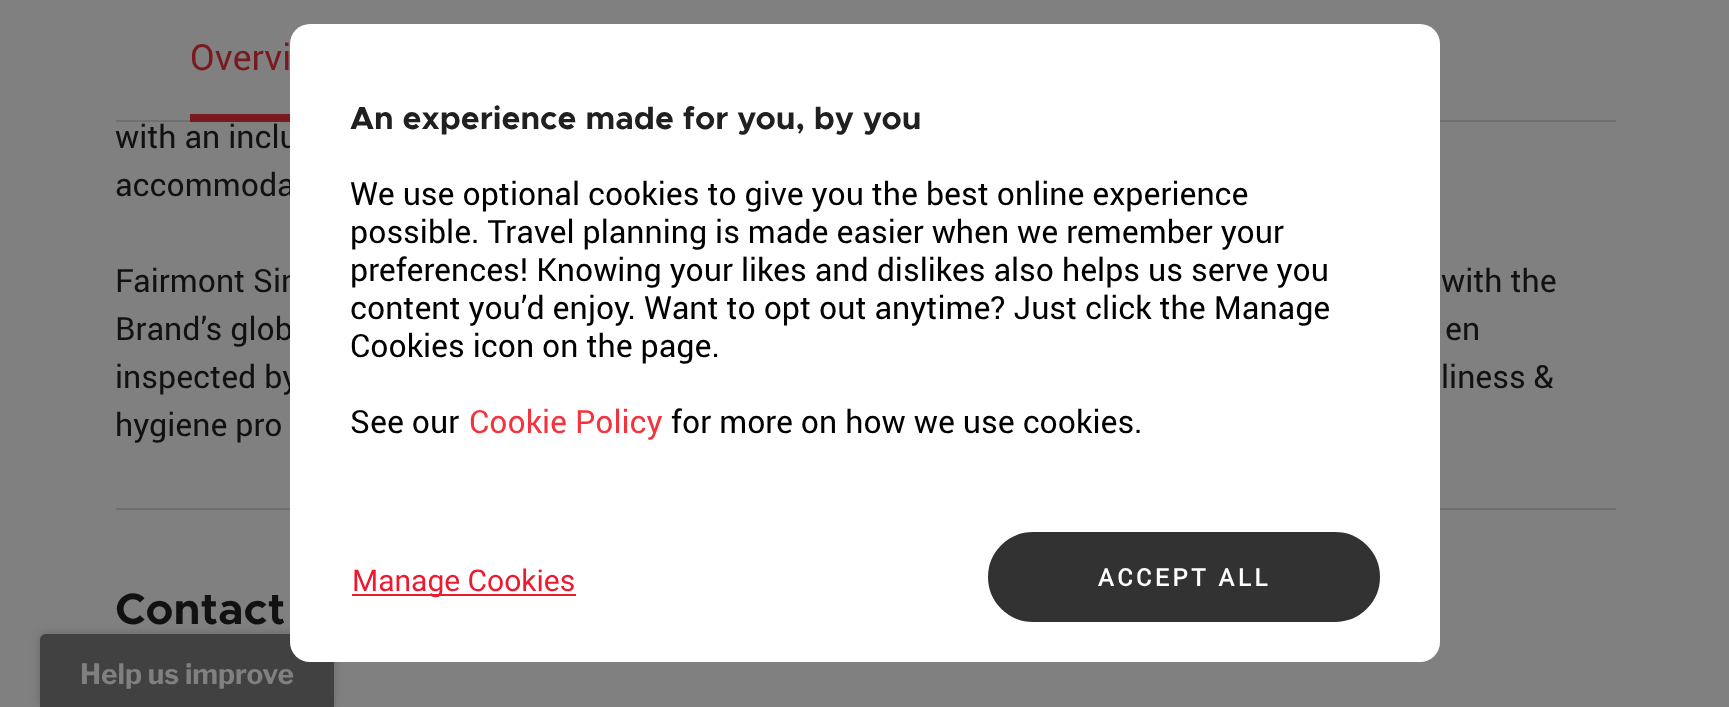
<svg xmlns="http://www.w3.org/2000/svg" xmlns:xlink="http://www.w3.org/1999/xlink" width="1729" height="707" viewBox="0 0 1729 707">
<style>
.cls-1{font:36px Roboto;fill:#7a1a1f}
.cls-2{font:32px Roboto;fill:#111111}
.cls-3{font:bold 44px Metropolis;fill:#111111}
.cls-4{font:bold 32px Metropolis;fill:#202020}
.cls-5{font:32px Roboto;fill:#000000}
.cls-6{font:32px Roboto;fill:#f4333d}
.cls-7{font:30px 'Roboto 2';fill:#ee192f}
.cls-8{font:bold 24px Roboto;letter-spacing:3.6px;fill:#ffffff}
.cls-9{font:bold 28px Libre Franklin;fill:#808080}
</style>
<rect width="100%" height="100%" fill="#808080"/>
<rect fill="#6f6f6f" x="116" y="120" width="1500" height="2"/>
<rect fill="#7a1a1f" x="190" y="114" width="100" height="8"/>
<rect fill="#6f6f6f" x="116" y="508" width="1500" height="2"/>
<rect fill="#000000" fill-opacity="0.2" filter="blur(5px)" x="40" y="634" width="294" height="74" rx="6"/>
<path fill="#414141" d="M46 634H328C331.5 634 334 636.5 334 640V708H40V640C40 636.5 42.5 634 46 634Z"/>
<text class="cls-1" x="190" y="70">Overvi</text>
<text class="cls-2"><tspan x="115" y="148">with an inclu</tspan><tspan x="115" y="196">accommoda</tspan></text>
<text class="cls-2" x="115" y="292">Fairmont Sin</text>
<text class="cls-2" x="1441" y="292">with the</text>
<text class="cls-2" x="115" y="340">Brand’s glob</text>
<text class="cls-2" x="1445" y="340">en</text>
<text class="cls-2" x="115" y="388">inspected by</text>
<text class="cls-2" x="1441" y="388">liness &amp;</text>
<text class="cls-2" x="115" y="436">hygiene pro</text>
<text class="cls-3" x="115" y="624">Contact</text>
<rect fill="#ffffff" x="290" y="24" width="1150" height="638" rx="20"/>
<text class="cls-4" x="350" y="129">An experience made for you, by you</text>
<text class="cls-5"><tspan x="350" y="205">We use optional cookies to give you the best online experience</tspan><tspan x="350" y="243">possible. Travel planning is made easier when we remember your</tspan><tspan x="350" y="281">preferences! Knowing your likes and dislikes also helps us serve you</tspan><tspan x="350" y="319">content you’d enjoy. Want to opt out anytime? Just click the Manage</tspan><tspan x="350" y="357">Cookies icon on the page.</tspan></text>
<text class="cls-5" x="350" y="433">See our</text>
<text class="cls-6" x="469" y="433">Cookie Policy</text>
<text class="cls-5" x="671" y="433">for more on how we use cookies.</text>
<rect fill="#ee192f" x="352" y="594" width="224" height="2"/>
<text class="cls-7" x="352" y="591">Manage Cookies</text>
<rect fill="#323232" stroke="#323232" stroke-width="2" x="989" y="533" width="390" height="88" rx="44"/>
<text class="cls-8" x="1098" y="586">ACCEPT ALL</text>
<text class="cls-9" x="80" y="684">Help us improve</text>
</svg>
